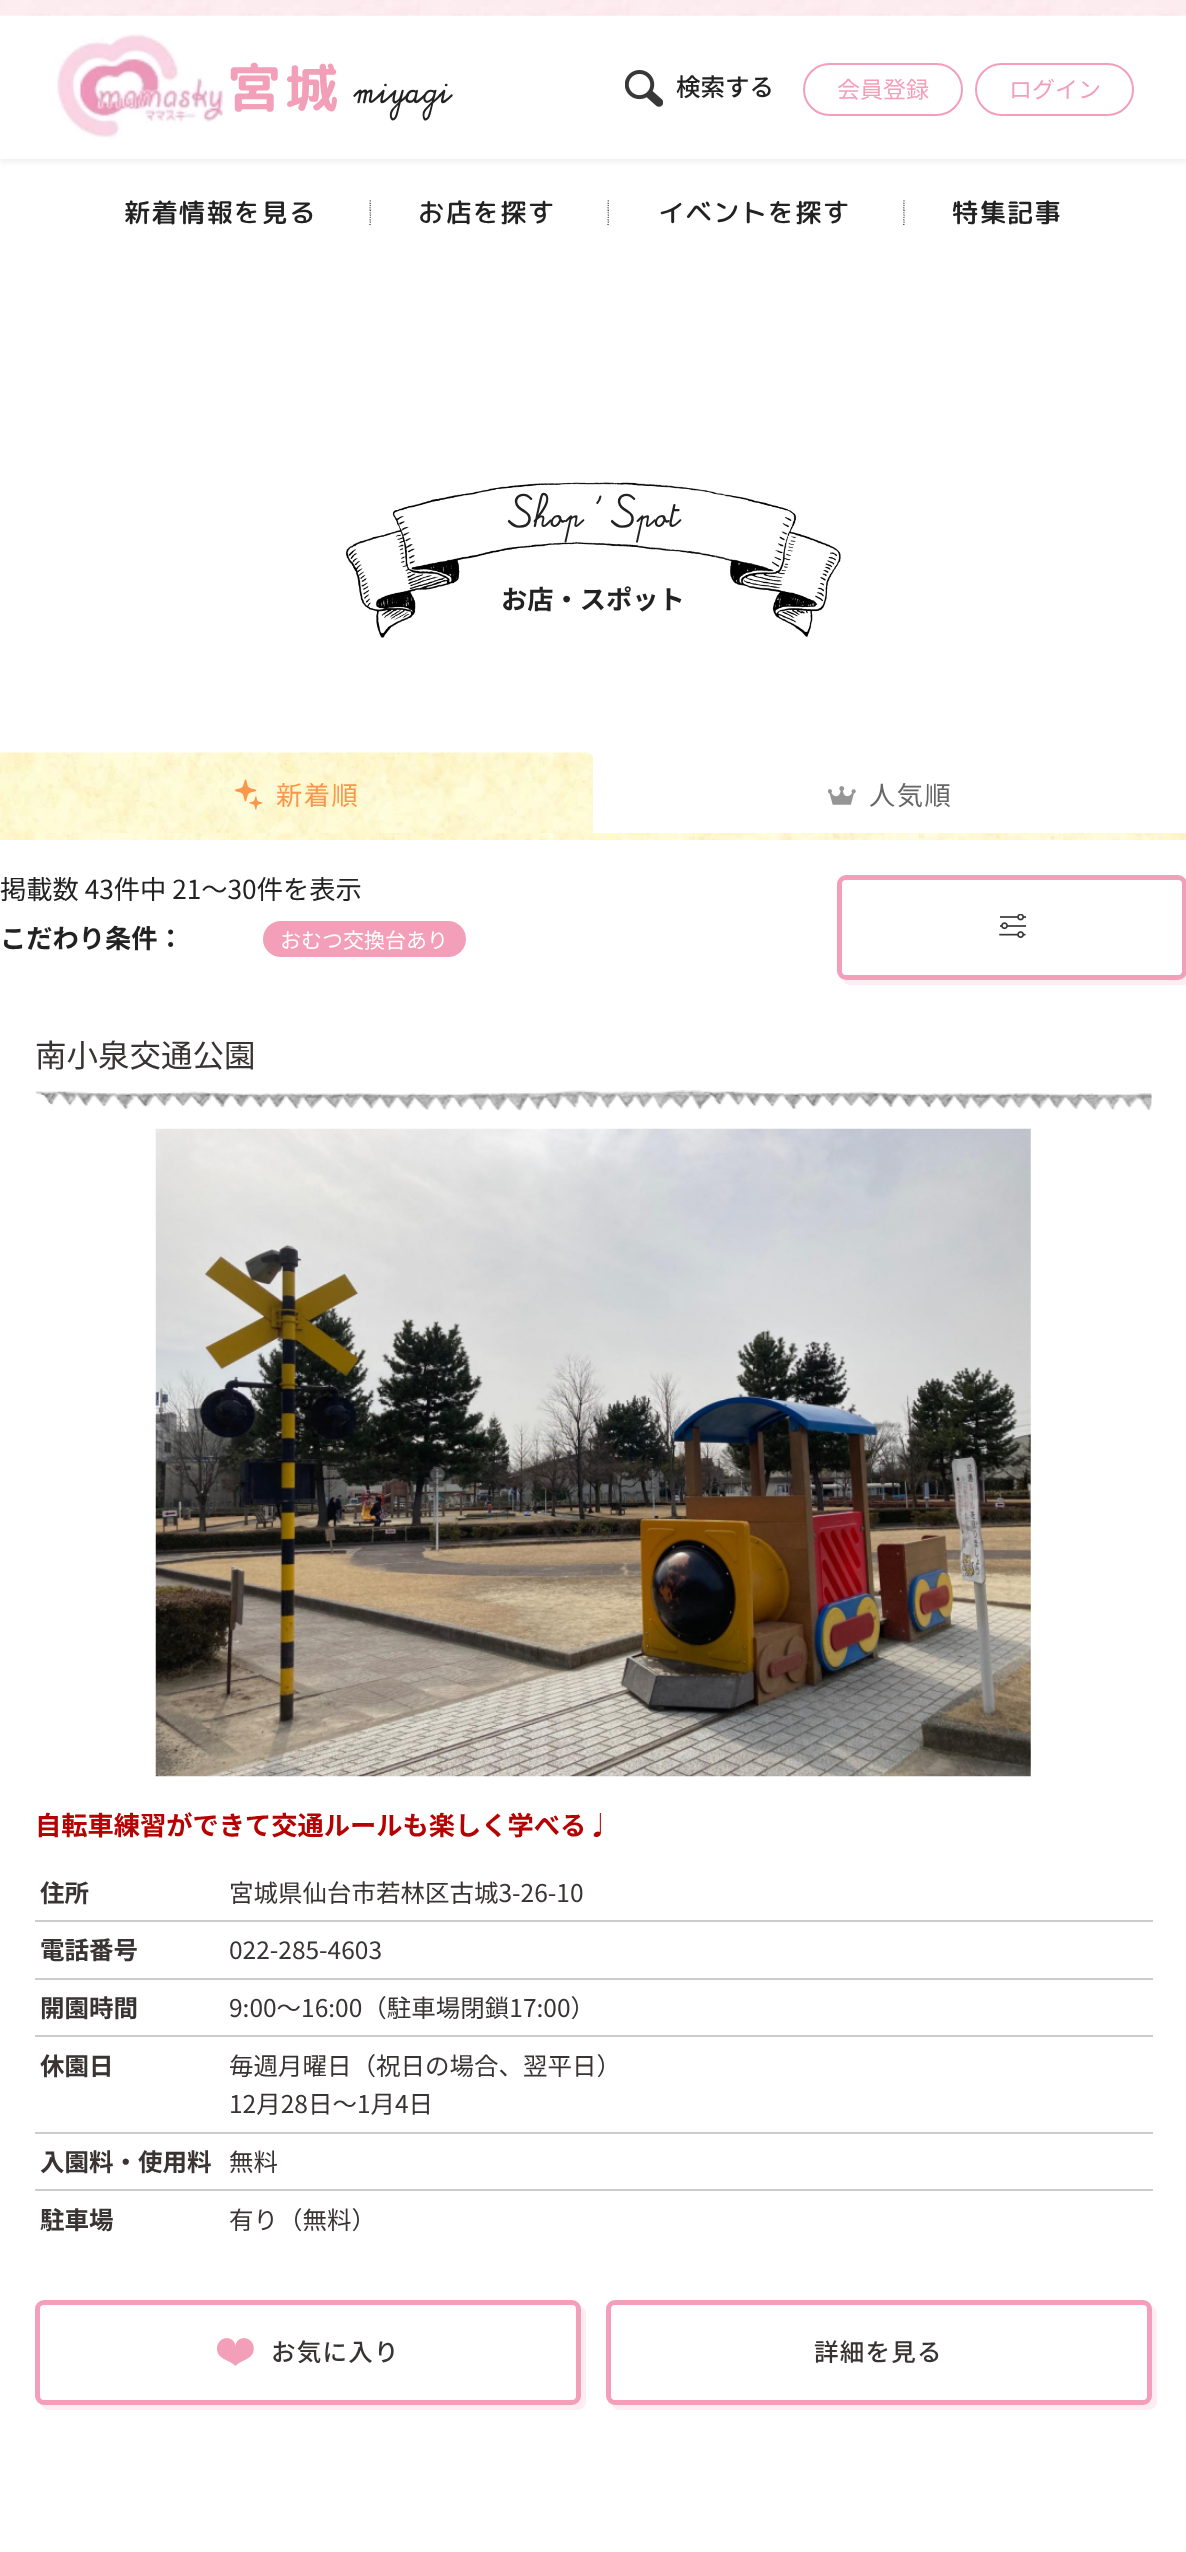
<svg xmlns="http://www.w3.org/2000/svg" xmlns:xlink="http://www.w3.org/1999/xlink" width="1186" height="2552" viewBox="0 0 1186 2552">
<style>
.cls-1{font:bold 52.5px 'Rounded Mplus 1c Bold';letter-spacing:5px;fill:#f39fba}
.cls-2{font:26.25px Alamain;fill:#222222}
.cls-3{font:500 24.5px Noto Sans JP;fill:#222222}
.cls-4{font:23px Noto Sans JP;fill:#f39fba}
.cls-5{font:500 26.25px 'Rounded Mplus 1c';letter-spacing:1.25px;fill:#222222}
.cls-6{font:23px Alamain;letter-spacing:1.5px;fill:#222222}
.cls-7{font:26.25px Alamain;letter-spacing:1.5px;fill:#222222}
.cls-8{font:bold 26.25px Noto Sans JP;fill:#222222}
.cls-9{font:26.25px Noto Sans JP;letter-spacing:1.5px;fill:#fa974c}
.cls-10{font:26.25px Noto Sans JP;letter-spacing:1.5px;fill:#666666}
.cls-11{font:26.25px Noto Sans JP;fill:#222222}
.cls-12{font:21px Noto Sans JP;fill:#ffffff}
.cls-13{font:31.5px Noto Sans JP;fill:#393333}
.cls-14{font:bold 26.25px Noto Sans JP;fill:#b50202}
.cls-15{font:bold 24.5px Noto Sans JP;fill:#393333}
.cls-16{font:24.5px Noto Sans JP;fill:#393333}
.cls-17{font:500 24.5px Noto Sans JP;letter-spacing:1.25px;fill:#393333}
</style>
<defs>
<clipPath id="clip1"><rect x="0" y="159" width="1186" height="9"/></clipPath>
</defs>
<rect width="100%" height="100%" fill="#ffffff"/>
<g clip-path="url(#clip1)">
<rect fill="#f2f2f2" filter="blur(2.5px)" x="0" y="4" width="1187" height="159"/>
</g>
<image xlink:href="image0.png" x="0" y="0" width="1186" height="16"/>
<image xlink:href="image1.png" x="57" y="34" width="167" height="106"/>
<image xlink:href="image2.png" x="625" y="70" width="38" height="37"/>
<rect fill="none" stroke="#f39fba" stroke-width="2" x="804" y="64" width="158" height="51" rx="25.5"/>
<rect fill="none" stroke="#f39fba" stroke-width="2" x="976" y="64" width="157" height="51" rx="25.5"/>
<image xlink:href="image3.png" x="369" y="200" width="2" height="26"/>
<image xlink:href="image3.png" x="607" y="200" width="2" height="26"/>
<image xlink:href="image4.png" x="903" y="200" width="2" height="26"/>
<image xlink:href="image5.png" x="346" y="482" width="495" height="156"/>
<image xlink:href="image6.png" x="0" y="752" width="594" height="81"/>
<image xlink:href="image7.png" x="235" y="779" width="28" height="31"/>
<path fill="#ffffff" d="M600 753H1180C1184 753 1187 756 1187 760V833H593V760C593 756 596 753 600 753Z"/>
<image xlink:href="image8.png" x="828" y="786" width="28" height="19"/>
<image xlink:href="image9.png" x="0" y="833" width="1186" height="7"/>
<rect fill="#f39fba" x="263" y="921" width="203" height="36" rx="18"/>
<path fill="#ffedf3" d="M843 980C844 983 847 985 851 985H1183C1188 985 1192 981 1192 976V889C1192 885 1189 882 1186 880V884V971C1186 976 1183 980 1178 980H845Z"/>
<rect fill="#ffffff" stroke="#f39fba" stroke-width="5" x="839.5" y="877.5" width="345" height="100" rx="6.5"/>
<image xlink:href="image10.png" x="999" y="914" width="27" height="24"/>
<image xlink:href="image11.png" x="35" y="1090" width="1117" height="21"/>
<image xlink:href="image12.png" x="155" y="1128" width="876" height="649"/>
<rect fill="#cccccc" x="35" y="1920" width="1118" height="2"/>
<rect fill="#cccccc" x="35" y="1978" width="1118" height="2"/>
<rect fill="#cccccc" x="35" y="2035" width="1118" height="2"/>
<rect fill="#cccccc" x="35" y="2132" width="1118" height="2"/>
<rect fill="#cccccc" x="35" y="2189" width="1118" height="2"/>
<path fill="#ffedf3" d="M40 2404C42 2407 45 2410 49 2410H577C582 2410 586 2406 586 2401V2314C586 2310 584 2307 581 2306V2396C581 2401 577 2404 572 2404H44Z"/>
<rect fill="#ffffff" stroke="#f39fba" stroke-width="5" x="37.5" y="2302.5" width="541" height="100" rx="6.5"/>
<image xlink:href="image13.png" x="217" y="2338" width="37" height="28"/>
<path fill="#ffedf3" d="M612 2404C613 2408 616 2410 620 2410H1148C1153 2410 1157 2406 1157 2401V2314C1157 2310 1155 2307 1151 2306L1152 2308V2396C1152 2401 1148 2404 1143 2404H614Z"/>
<rect fill="#ffffff" stroke="#f39fba" stroke-width="5" x="608.5" y="2302.5" width="541" height="100" rx="6.5"/>
<text class="cls-1" x="228" y="107">宮城</text>
<text class="cls-2" x="354" y="103">miyagi</text>
<text class="cls-3" x="676" y="96">検索する</text>
<text class="cls-4" x="837" y="98">会員登録</text>
<text class="cls-4" x="1009" y="98">ログイン</text>
<text class="cls-5" x="124" y="222">新着情報を見る</text>
<text class="cls-5" x="418" y="222">お店を探す</text>
<text class="cls-5" x="658" y="222">イベントを探す</text>
<text class="cls-5" x="952" y="222">特集記事</text>
<text class="cls-6" x="506" y="527">Shop</text>
<text class="cls-7" x="590" y="527">&amp;</text>
<text class="cls-6" x="609" y="527">Spot</text>
<text class="cls-8" x="501" y="609">お店・スポット</text>
<text class="cls-9" x="276" y="805">新着順</text>
<text class="cls-10" x="869" y="805">人気順</text>
<text class="cls-11" x="0" y="899">掲載数 43件中 21〜30件を表示</text>
<text class="cls-8" x="0" y="948">こだわり条件：</text>
<text class="cls-12" x="280" y="948">おむつ交換台あり</text>
<text class="cls-13" x="35" y="1067">南小泉交通公園</text>
<text class="cls-14" x="35" y="1835">自転車練習ができて交通ルールも楽しく学べる♩</text>
<text class="cls-15" x="40" y="1902">住所</text>
<text class="cls-16" x="229" y="1902">宮城県仙台市若林区古城3-26-10</text>
<text class="cls-15" x="40" y="1959">電話番号</text>
<text class="cls-16" x="229" y="1959">022-285-4603</text>
<text class="cls-15" x="40" y="2017">開園時間</text>
<text class="cls-16" x="229" y="2017">9:00〜16:00（駐車場閉鎖17:00）</text>
<text class="cls-15" x="40" y="2075">休園日</text>
<text class="cls-16"><tspan x="229" y="2075">毎週月曜日（祝日の場合、翌平日）</tspan><tspan x="229" y="2113">12月28日〜1月4日</tspan></text>
<text class="cls-15" x="40" y="2171">入園料・使用料</text>
<text class="cls-16" x="229" y="2171">無料</text>
<text class="cls-15" x="40" y="2229">駐車場</text>
<text class="cls-16" x="229" y="2229">有り（無料）</text>
<text class="cls-17" x="271" y="2361">お気に入り</text>
<text class="cls-17" x="814" y="2361">詳細を見る</text>
</svg>
